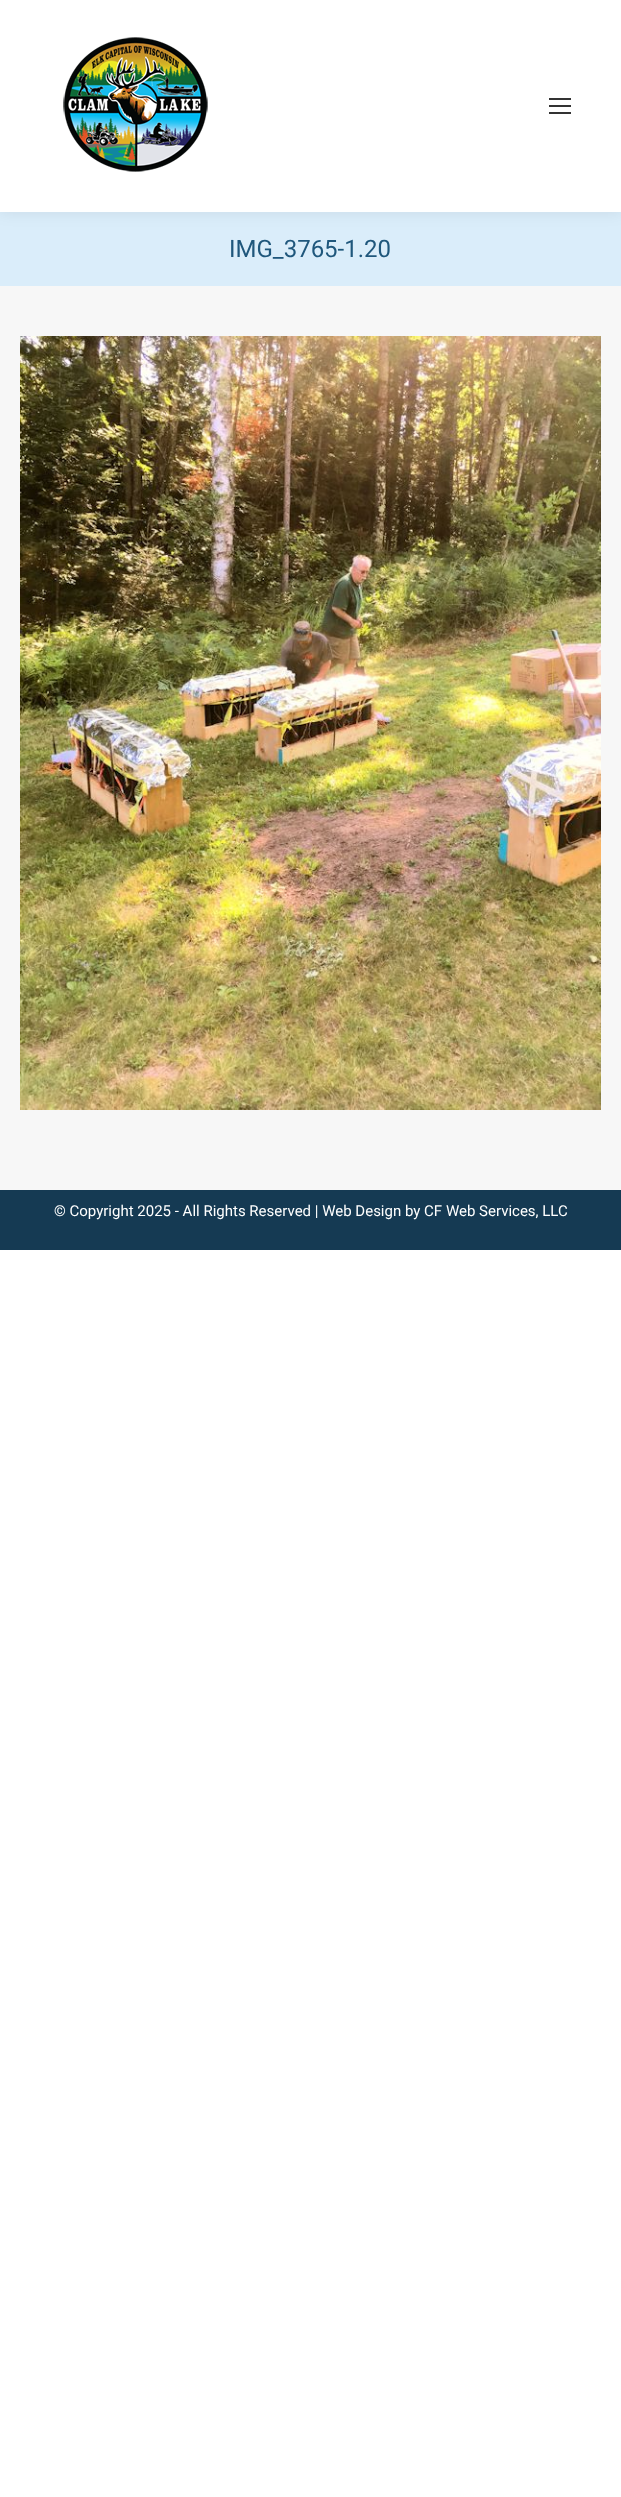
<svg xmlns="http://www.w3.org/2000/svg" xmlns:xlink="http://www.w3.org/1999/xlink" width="621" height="2497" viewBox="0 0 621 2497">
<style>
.cls-1{font:24px Roboto;fill:#1f577c}
.cls-2{font:15px Roboto;fill:#ffffff}
</style>
<rect width="100%" height="100%" fill="#ffffff"/>
<rect fill="#f7f7f7" x="0" y="286" width="621" height="904"/>
<rect fill="#daedfa" x="0" y="212" width="621" height="74"/>
<rect fill="#000000" fill-opacity="0.07" filter="blur(7.5px)" x="-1" y="-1" width="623" height="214"/>
<rect fill="#ffffff" x="0" y="0" width="621" height="212"/>
<image xlink:href="image0.png" x="63" y="37" width="145" height="135"/>
<rect fill="#333333" x="549" y="105" width="22" height="2"/>
<rect fill="#333333" x="549" y="98" width="22" height="2"/>
<rect fill="#333333" x="549" y="112" width="22" height="2"/>
<image xlink:href="image1.png" x="20" y="336" width="581" height="774"/>
<rect fill="#153a53" x="0" y="1190" width="621" height="60"/>
<text class="cls-1" x="229" y="257">IMG_3765-1.20</text>
<text class="cls-2" x="54" y="1216">© Copyright 2025 - All Rights Reserved | Web Design by CF Web Services, LLC</text>
</svg>
